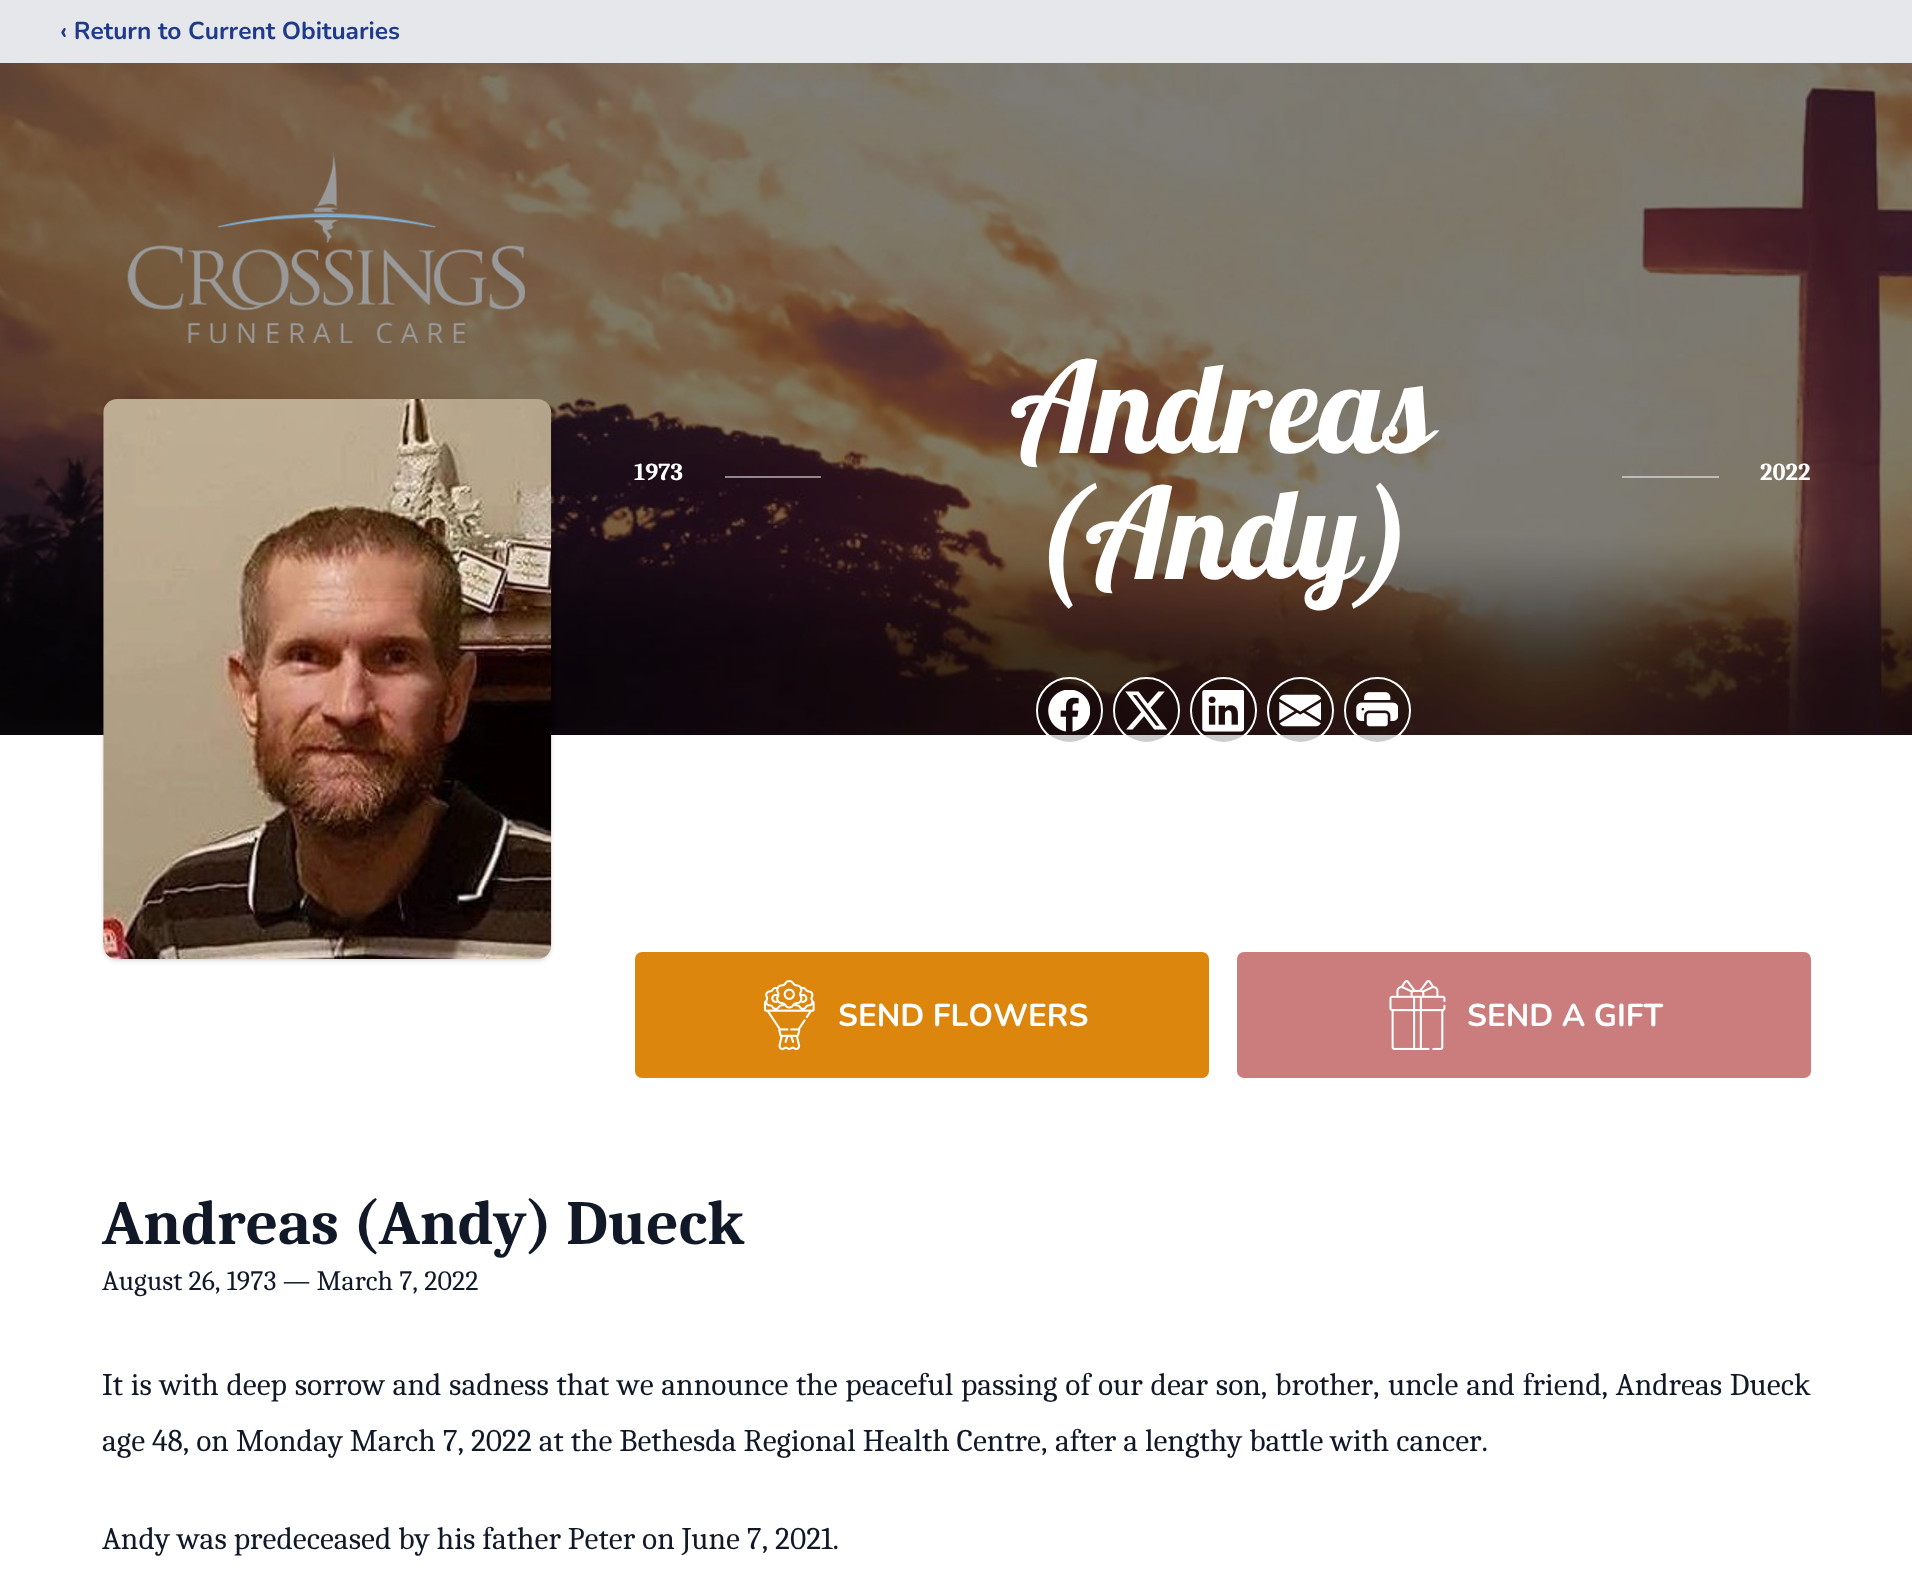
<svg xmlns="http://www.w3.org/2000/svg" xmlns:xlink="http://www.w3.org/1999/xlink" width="1912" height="1573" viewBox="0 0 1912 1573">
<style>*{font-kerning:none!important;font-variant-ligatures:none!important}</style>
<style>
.cls-1{font:bold 24.5px Nunito;fill:#1e3a8a}
.cls-2{font:bold 24.5px Caladea;fill:#ffffff}
.cls-3{font:126px Lobster;fill:#ffffff}
.cls-4{font:bold 31.5px Nunito;fill:#ffffff}
.cls-5{font:bold 63px Caladea;fill:#111827}
.cls-6{font:28px Caladea;fill:#111827}
.cls-7{font:31.5px Caladea;fill:#111827}
</style>
<rect width="100%" height="100%" fill="#ffffff"/>
<rect fill="#e5e7eb" x="0" y="0" width="1912" height="63"/>
<image xlink:href="image0.png" x="0" y="63" width="1912" height="672"/>
<image xlink:href="image1.png" x="127" y="152" width="398" height="191"/>
<rect fill="#000000" fill-opacity="0.1" filter="blur(2px)" x="105" y="403" width="445" height="556" rx="12"/>
<rect fill="#000000" fill-opacity="0.1" filter="blur(2.5px)" x="103" y="401" width="448" height="560" rx="14"/>
<image xlink:href="image2.png" x="103" y="399" width="449" height="560"/>
<rect fill="#ffffff" fill-opacity="0.5" x="725" y="476" width="96" height="2"/>
<rect fill="#ffffff" fill-opacity="0.5" x="1622" y="476" width="97" height="2"/>
<circle fill="none" stroke="#ffffff" stroke-width="2" cx="1069.5" cy="710.5" r="32.5"/>
<circle fill="#000000" fill-opacity="0.2" cx="1069.5" cy="710.5" r="31.5"/>
<image xlink:href="image3.png" x="1048" y="690" width="42" height="42"/>
<circle fill="none" stroke="#ffffff" stroke-width="2" cx="1146.5" cy="710.5" r="32.5"/>
<circle fill="#000000" fill-opacity="0.2" cx="1146.5" cy="710.5" r="31.5"/>
<image xlink:href="image4.png" x="1125" y="691" width="42" height="39"/>
<circle fill="none" stroke="#ffffff" stroke-width="2" cx="1223.5" cy="710.5" r="32.5"/>
<circle fill="#000000" fill-opacity="0.2" cx="1223.5" cy="710.5" r="31.5"/>
<image xlink:href="image5.png" x="1202" y="690" width="42" height="42"/>
<circle fill="none" stroke="#ffffff" stroke-width="2" cx="1300.5" cy="710.5" r="32.5"/>
<circle fill="#000000" fill-opacity="0.2" cx="1300.5" cy="710.5" r="31.5"/>
<image xlink:href="image6.png" x="1279" y="694" width="42" height="33"/>
<circle fill="none" stroke="#ffffff" stroke-width="2" cx="1377.5" cy="710.5" r="32.5"/>
<circle fill="#000000" fill-opacity="0.2" cx="1377.5" cy="710.5" r="31.5"/>
<image xlink:href="image7.png" x="1356" y="692" width="42" height="35"/>
<rect fill="#dc860d" x="635" y="952" width="574" height="126" rx="7"/>
<image xlink:href="image8.png" x="763" y="980" width="52" height="70"/>
<rect fill="#cb7c7c" x="1237" y="952" width="574" height="126" rx="7"/>
<image xlink:href="image9.png" x="1389" y="980" width="57" height="70"/>
<text class="cls-1" x="60" y="39">‹ Return to Current Obituaries</text>
<text class="cls-2" x="634" y="480">1973</text>
<text class="cls-3" x="1010" y="453">Andreas</text>
<text class="cls-3" x="1030" y="579">(Andy)</text>
<text class="cls-2" x="1760" y="480">2022</text>
<text class="cls-4" x="838" y="1026">SEND FLOWERS</text>
<text class="cls-4" x="1467" y="1026">SEND A GIFT</text>
<text class="cls-5" x="102" y="1244">Andreas (Andy) Dueck</text>
<text class="cls-6" x="102" y="1290">August 26, 1973 — March 7, 2022</text>
<text class="cls-7" x="102" y="1395" word-spacing="0.8">It is with deep sorrow and sadness that we announce the peaceful passing of our dear son, brother,</text>
<text class="cls-7" x="1388" y="1395" word-spacing="0.8">uncle and friend, Andreas Dueck</text>
<text class="cls-7" x="102" y="1451">age 48, on Monday March 7, 2022 at the Bethesda Regional Health Centre,</text>
<text class="cls-7" x="1055" y="1451">after a lengthy battle with cancer.</text>
<text class="cls-7" x="102" y="1549">Andy was predeceased by his father Peter on June 7, 2021.</text>
</svg>
